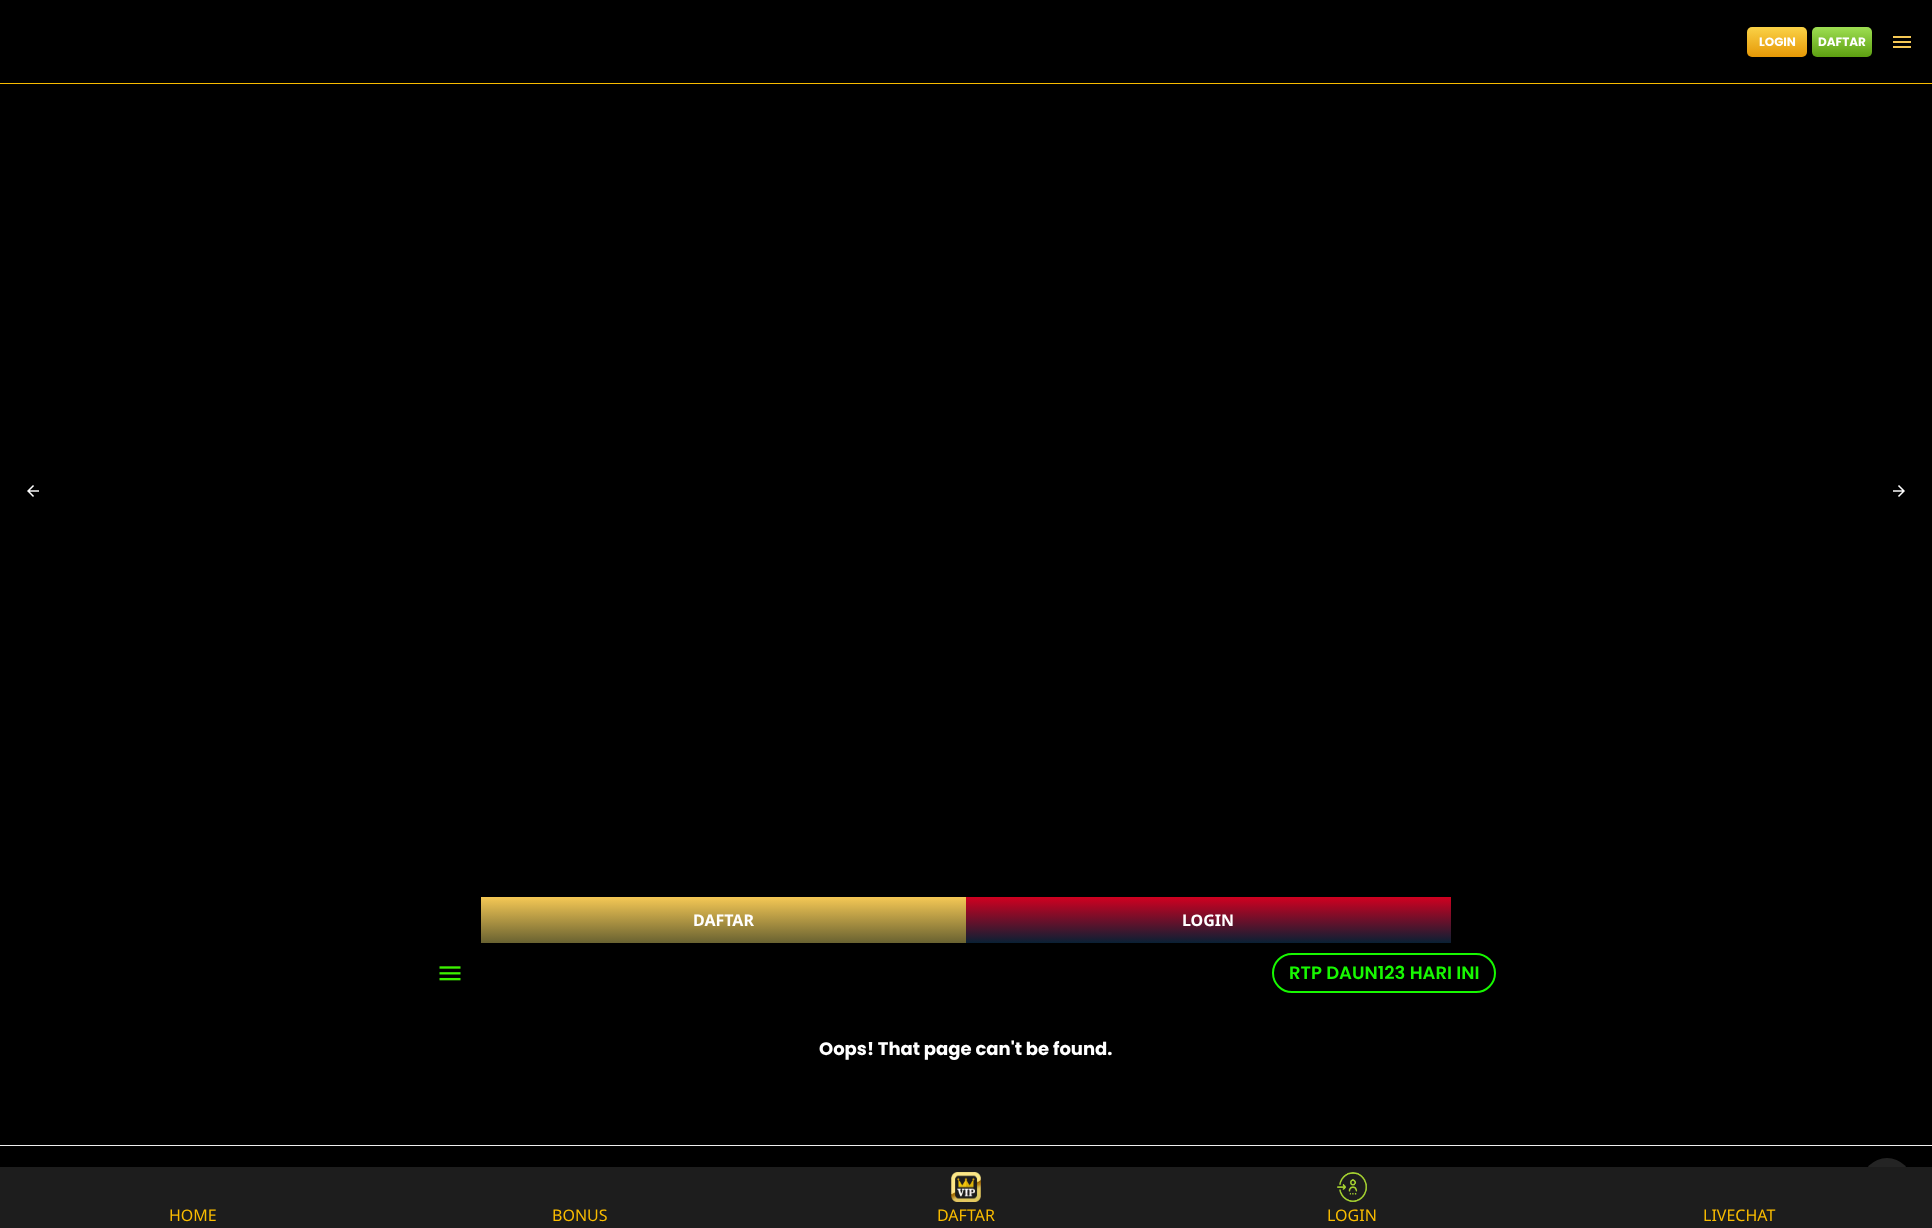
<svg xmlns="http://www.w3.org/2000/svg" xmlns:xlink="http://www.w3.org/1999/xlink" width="1932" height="1228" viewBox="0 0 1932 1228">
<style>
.cls-1{font:bold 12px Poppins;fill:#ffffff}
.cls-2{font:bold 16px Noto Sans;fill:#ffffff}
.cls-3{font:600 18px Poppins;fill:#17f800}
.cls-4{font:bold 18px Poppins;fill:#ffffff}
.cls-5{font:16px Noto Sans;fill:#f9bc00}
</style>
<defs>
<linearGradient id="g1" gradientUnits="userSpaceOnUse" x1="1777" y1="27" x2="1777" y2="57"><stop offset="0" stop-color="#fad247"/><stop offset="1" stop-color="#e69806"/></linearGradient>
<linearGradient id="g2" gradientUnits="userSpaceOnUse" x1="1842" y1="27" x2="1842" y2="57"><stop offset="0" stop-color="#9edf52"/><stop offset="1" stop-color="#5d9f11"/></linearGradient>
<linearGradient id="g3" gradientUnits="userSpaceOnUse" x1="724" y1="897" x2="724" y2="943"><stop offset="0" stop-color="#f5c855"/><stop offset="1" stop-color="#696231"/></linearGradient>
<linearGradient id="g4" gradientUnits="userSpaceOnUse" x1="1209" y1="897" x2="1209" y2="943"><stop offset="0" stop-color="#d10020"/><stop offset="1" stop-color="#092034"/></linearGradient>
</defs>
<rect width="100%" height="100%" fill="#000000"/>
<rect fill="#f9bc00" x="0" y="83" width="1932" height="1"/>
<rect fill="url(#g1)" x="1747" y="27" width="60" height="30" rx="5"/>
<rect fill="url(#g2)" x="1812" y="27" width="60" height="30" rx="5"/>
<rect fill="#f5c855" x="1893" y="41" width="18" height="2"/>
<rect fill="#f5c855" x="1893" y="36" width="18" height="2"/>
<rect fill="#f5c855" x="1893" y="46" width="18" height="2"/>
<image xlink:href="image0.png" x="27" y="485" width="12" height="12"/>
<image xlink:href="image1.png" x="1893" y="485" width="12" height="12"/>
<rect fill="url(#g3)" x="481" y="897" width="485" height="46"/>
<rect fill="url(#g4)" x="966" y="897" width="485" height="46"/>
<image xlink:href="image2.png" x="439" y="966" width="22" height="15"/>
<rect fill="none" stroke="#17f800" stroke-width="2" x="1273" y="954" width="222" height="38" rx="19"/>
<rect fill="#eeeeee" x="0" y="1145" width="1932" height="1"/>
<circle fill="#242424" cx="1887" cy="1183" r="25"/>
<rect fill="#1d1d1d" x="0" y="1167" width="1932" height="61"/>
<image xlink:href="image3.png" x="951" y="1172" width="30" height="30"/>
<image xlink:href="image4.png" x="1337" y="1172" width="30" height="30"/>
<text class="cls-1" x="1759" y="46">LOGIN</text>
<text class="cls-1" x="1818" y="46">DAFTAR</text>
<text class="cls-2" x="693" y="926">DAFTAR</text>
<text class="cls-2" x="1182" y="926">LOGIN</text>
<text class="cls-3" x="1289" y="979">RTP DAUN123 HARI INI</text>
<text class="cls-4" x="819" y="1055">Oops! That page can't be found.</text>
<text class="cls-5" x="169" y="1221">HOME</text>
<text class="cls-5" x="552" y="1221">BONUS</text>
<text class="cls-5" x="937" y="1221">DAFTAR</text>
<text class="cls-5" x="1327" y="1221">LOGIN</text>
<text class="cls-5" x="1703" y="1221">LIVECHAT</text>
</svg>
